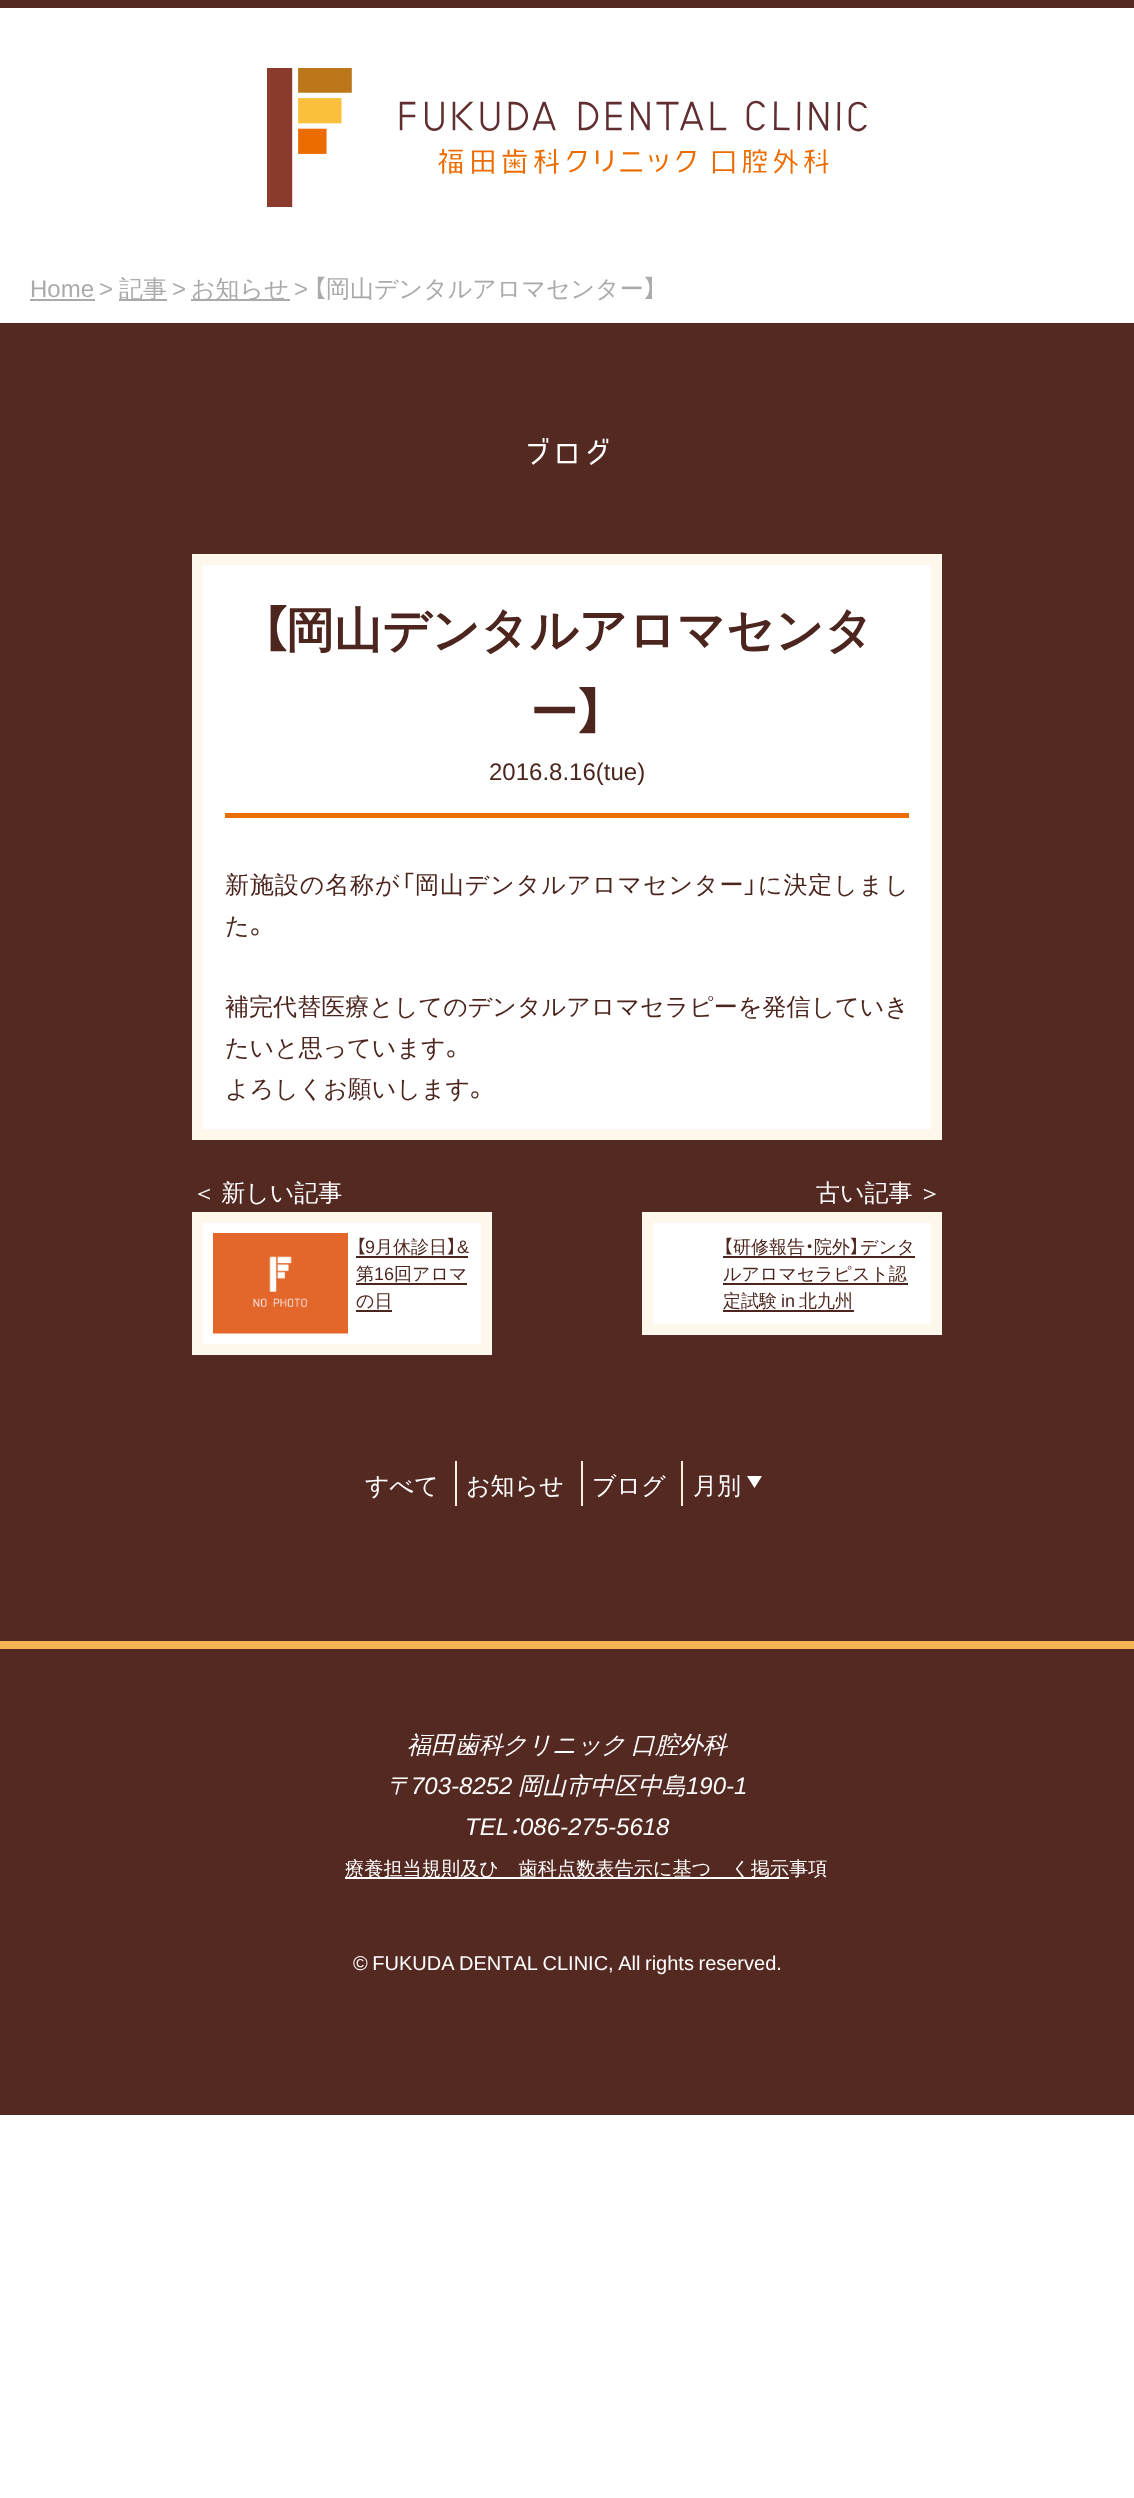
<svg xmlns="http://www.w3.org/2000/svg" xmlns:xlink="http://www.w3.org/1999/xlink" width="1134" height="2498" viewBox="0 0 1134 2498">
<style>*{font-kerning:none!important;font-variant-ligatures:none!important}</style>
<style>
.cls-1{font:24px Liberation Sans;fill:#aaaaaa}
.cls-2{font:500 24px WenQuanYi Zen Hei;fill:#aaaaaa}
.cls-3{font:24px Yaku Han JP;fill:#aaaaaa}
.cls-4{font:30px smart;fill:#ffffff}
.cls-5{font:bold 48px Yaku Han JP;fill:#4c261e}
.cls-6{font:bold 48px WenQuanYi Zen Hei;fill:#4c261e}
.cls-7{font:24px Liberation Sans;fill:#4c261e}
.cls-8{font:500 24px WenQuanYi Zen Hei;letter-spacing:0.9px;fill:#4c261e}
.cls-9{font:24px Yaku Han JP;letter-spacing:0.9px;fill:#4c261e}
.cls-10{font:500 24px WenQuanYi Zen Hei;fill:#4c261e}
.cls-11{font:24px Yaku Han JP;fill:#4c261e}
.cls-12{font:500 24px WenQuanYi Zen Hei;letter-spacing:0.05px;fill:#4c261e}
.cls-13{font:500 24px WenQuanYi Zen Hei;fill:#ffffff}
.cls-14{font:18px Yaku Han JP;fill:#4c261e}
.cls-15{font:18px Liberation Sans;fill:#4c261e}
.cls-16{font:500 18px WenQuanYi Zen Hei;fill:#4c261e}
.cls-17{font:italic 500 24px WenQuanYi Zen Hei;fill:#ffffff}
.cls-18{font:italic 24px Liberation Sans;fill:#ffffff}
.cls-19{font:italic 24px Yaku Han JP;fill:#ffffff}
.cls-20{font:500 19.2px WenQuanYi Zen Hei;fill:#ffffff}
.cls-21{font:20px Liberation Sans;fill:#ffffff}
</style>
<rect width="100%" height="100%" fill="#ffffff"/>
<rect fill="#542921" x="0" y="0" width="1134" height="8"/>
<image xlink:href="image0.png" x="267" y="68" width="600" height="139"/>
<rect fill="#aaaaaa" x="30" y="299" width="65" height="2"/>
<rect fill="#aaaaaa" x="119" y="299" width="48" height="2"/>
<rect fill="#aaaaaa" x="191" y="299" width="99" height="2"/>
<rect fill="#542921" x="0" y="323" width="1134" height="1318"/>
<rect fill="#ffffff" stroke="#fdf7ec" stroke-width="11" x="197.5" y="559.5" width="739" height="575"/>
<rect fill="#ec6d00" x="225" y="813" width="684" height="5"/>
<rect fill="#ffffff" stroke="#fdf7ec" stroke-width="11" x="197.5" y="1217.5" width="289" height="132"/>
<image xlink:href="image1.png" x="213" y="1233" width="135" height="101"/>
<rect fill="#4c261e" x="356" y="1256" width="112" height="2"/>
<rect fill="#4c261e" x="356" y="1283" width="111" height="2"/>
<rect fill="#4c261e" x="356" y="1310" width="36" height="2"/>
<rect fill="#ffffff" stroke="#fdf7ec" stroke-width="11" x="647.5" y="1217.5" width="289" height="112"/>
<rect fill="#4c261e" x="723" y="1256" width="192" height="2"/>
<rect fill="#4c261e" x="723" y="1283" width="185" height="2"/>
<rect fill="#4c261e" x="723" y="1310" width="131" height="2"/>
<rect fill="#fff1d9" x="455" y="1461" width="2" height="45"/>
<rect fill="#fff1d9" x="581" y="1461" width="2" height="45"/>
<rect fill="#fff1d9" x="681" y="1461" width="2" height="45"/>
<path fill="#ffffff" d="M747 1476H762L754.5 1488Z"/>
<rect fill="#542921" x="0" y="1649" width="1134" height="466"/>
<rect fill="#f4b451" x="0" y="1641" width="1134" height="8"/>
<rect fill="#ffffff" x="345" y="1877" width="444" height="2"/>
<text class="cls-1" x="30" y="297">Home</text>
<text class="cls-1" x="99" y="297">&gt;</text>
<text class="cls-2" x="119" y="297">記事</text>
<text class="cls-1" x="172" y="297">&gt;</text>
<text class="cls-2" x="191" y="297">お知らせ</text>
<text class="cls-1" x="294" y="297">&gt;</text>
<text class="cls-3" x="313" y="297">【</text>
<text class="cls-2" x="326" y="297">岡山デンタルアロマセンター</text>
<text class="cls-3" x="644" y="297">】</text>
<text class="cls-4" x="522" y="464">ブログ</text>
<text class="cls-5" x="261" y="647">【</text>
<text class="cls-6" x="286" y="647">岡山デンタルアロマセンタ</text>
<text class="cls-6" x="530" y="729">ー</text>
<text class="cls-5" x="578" y="729">】</text>
<text class="cls-7" x="489" y="780">2016.8.16(tue)</text>
<text class="cls-8" x="225" y="893">新施設の名称が</text>
<text class="cls-9" x="401" y="893">「</text>
<text class="cls-8" x="415" y="893">岡山デンタルアロマセンター</text>
<text class="cls-9" x="744" y="893">」</text>
<text class="cls-8" x="758" y="893">に決定しまし</text>
<text class="cls-10" x="225" y="934">た</text>
<text class="cls-11" x="250" y="934">。</text>
<text class="cls-12" x="225" y="1015">補完代替医療としてのデンタルアロマセラピーを発信していき</text>
<text class="cls-10" x="225" y="1056">たいと思っています</text>
<text class="cls-11" x="446" y="1056">。</text>
<text class="cls-10" x="225" y="1097">よろしくお願いします</text>
<text class="cls-11" x="470" y="1097">。</text>
<text class="cls-13" x="192" y="1201" word-spacing="-2">＜ 新しい記事</text>
<text class="cls-14" x="356" y="1253">【</text>
<text class="cls-15" x="365" y="1253">9</text>
<text class="cls-16" x="375" y="1253">月休診日</text>
<text class="cls-14" x="447" y="1253">】</text>
<text class="cls-15" x="457" y="1253">&amp;</text>
<text class="cls-16" x="356" y="1280">第</text>
<text class="cls-15" x="374" y="1280">16</text>
<text class="cls-16" x="394" y="1280">回アロマ</text>
<text class="cls-16" x="356" y="1307">の日</text>
<text class="cls-13" x="816" y="1201" word-spacing="-2">古い記事 ＞</text>
<text class="cls-14" x="723" y="1253">【</text>
<text class="cls-16" x="733" y="1253">研修報告</text>
<text class="cls-14" x="805" y="1253">・</text>
<text class="cls-16" x="814" y="1253">院外</text>
<text class="cls-14" x="850" y="1253">】</text>
<text class="cls-16" x="860" y="1253">デンタ</text>
<text class="cls-16"><tspan x="723" y="1280">ルアロマセラピスト認</tspan><tspan x="723" y="1307">定試験</tspan></text>
<text class="cls-15" x="781" y="1307">in</text>
<text class="cls-16" x="799" y="1307">北九州</text>
<text class="cls-13" x="365" y="1494">すべて</text>
<text class="cls-13" x="466" y="1494">お知らせ</text>
<text class="cls-13" x="592" y="1494">ブログ</text>
<text class="cls-13" x="693" y="1494">月別</text>
<text class="cls-17" x="407" y="1753" word-spacing="-2">福田歯科クリニック 口腔外科</text>
<text class="cls-17" x="387" y="1794">〒</text>
<text class="cls-18" x="411" y="1794">703-8252</text>
<text class="cls-17" x="518" y="1794">岡山市中区中島</text>
<text class="cls-18" x="686" y="1794">190-1</text>
<text class="cls-18" x="465" y="1835">TEL</text>
<text class="cls-19" x="509" y="1835">：</text>
<text class="cls-18" x="520" y="1835">086-275-5618</text>
<text class="cls-20" x="345" y="1875">療養担当規則及び歯科点数表告示に基づく掲示事項</text>
<text class="cls-21" x="353" y="1970" word-spacing="-1">© FUKUDA DENTAL CLINIC, All rights reserved.</text>
</svg>
